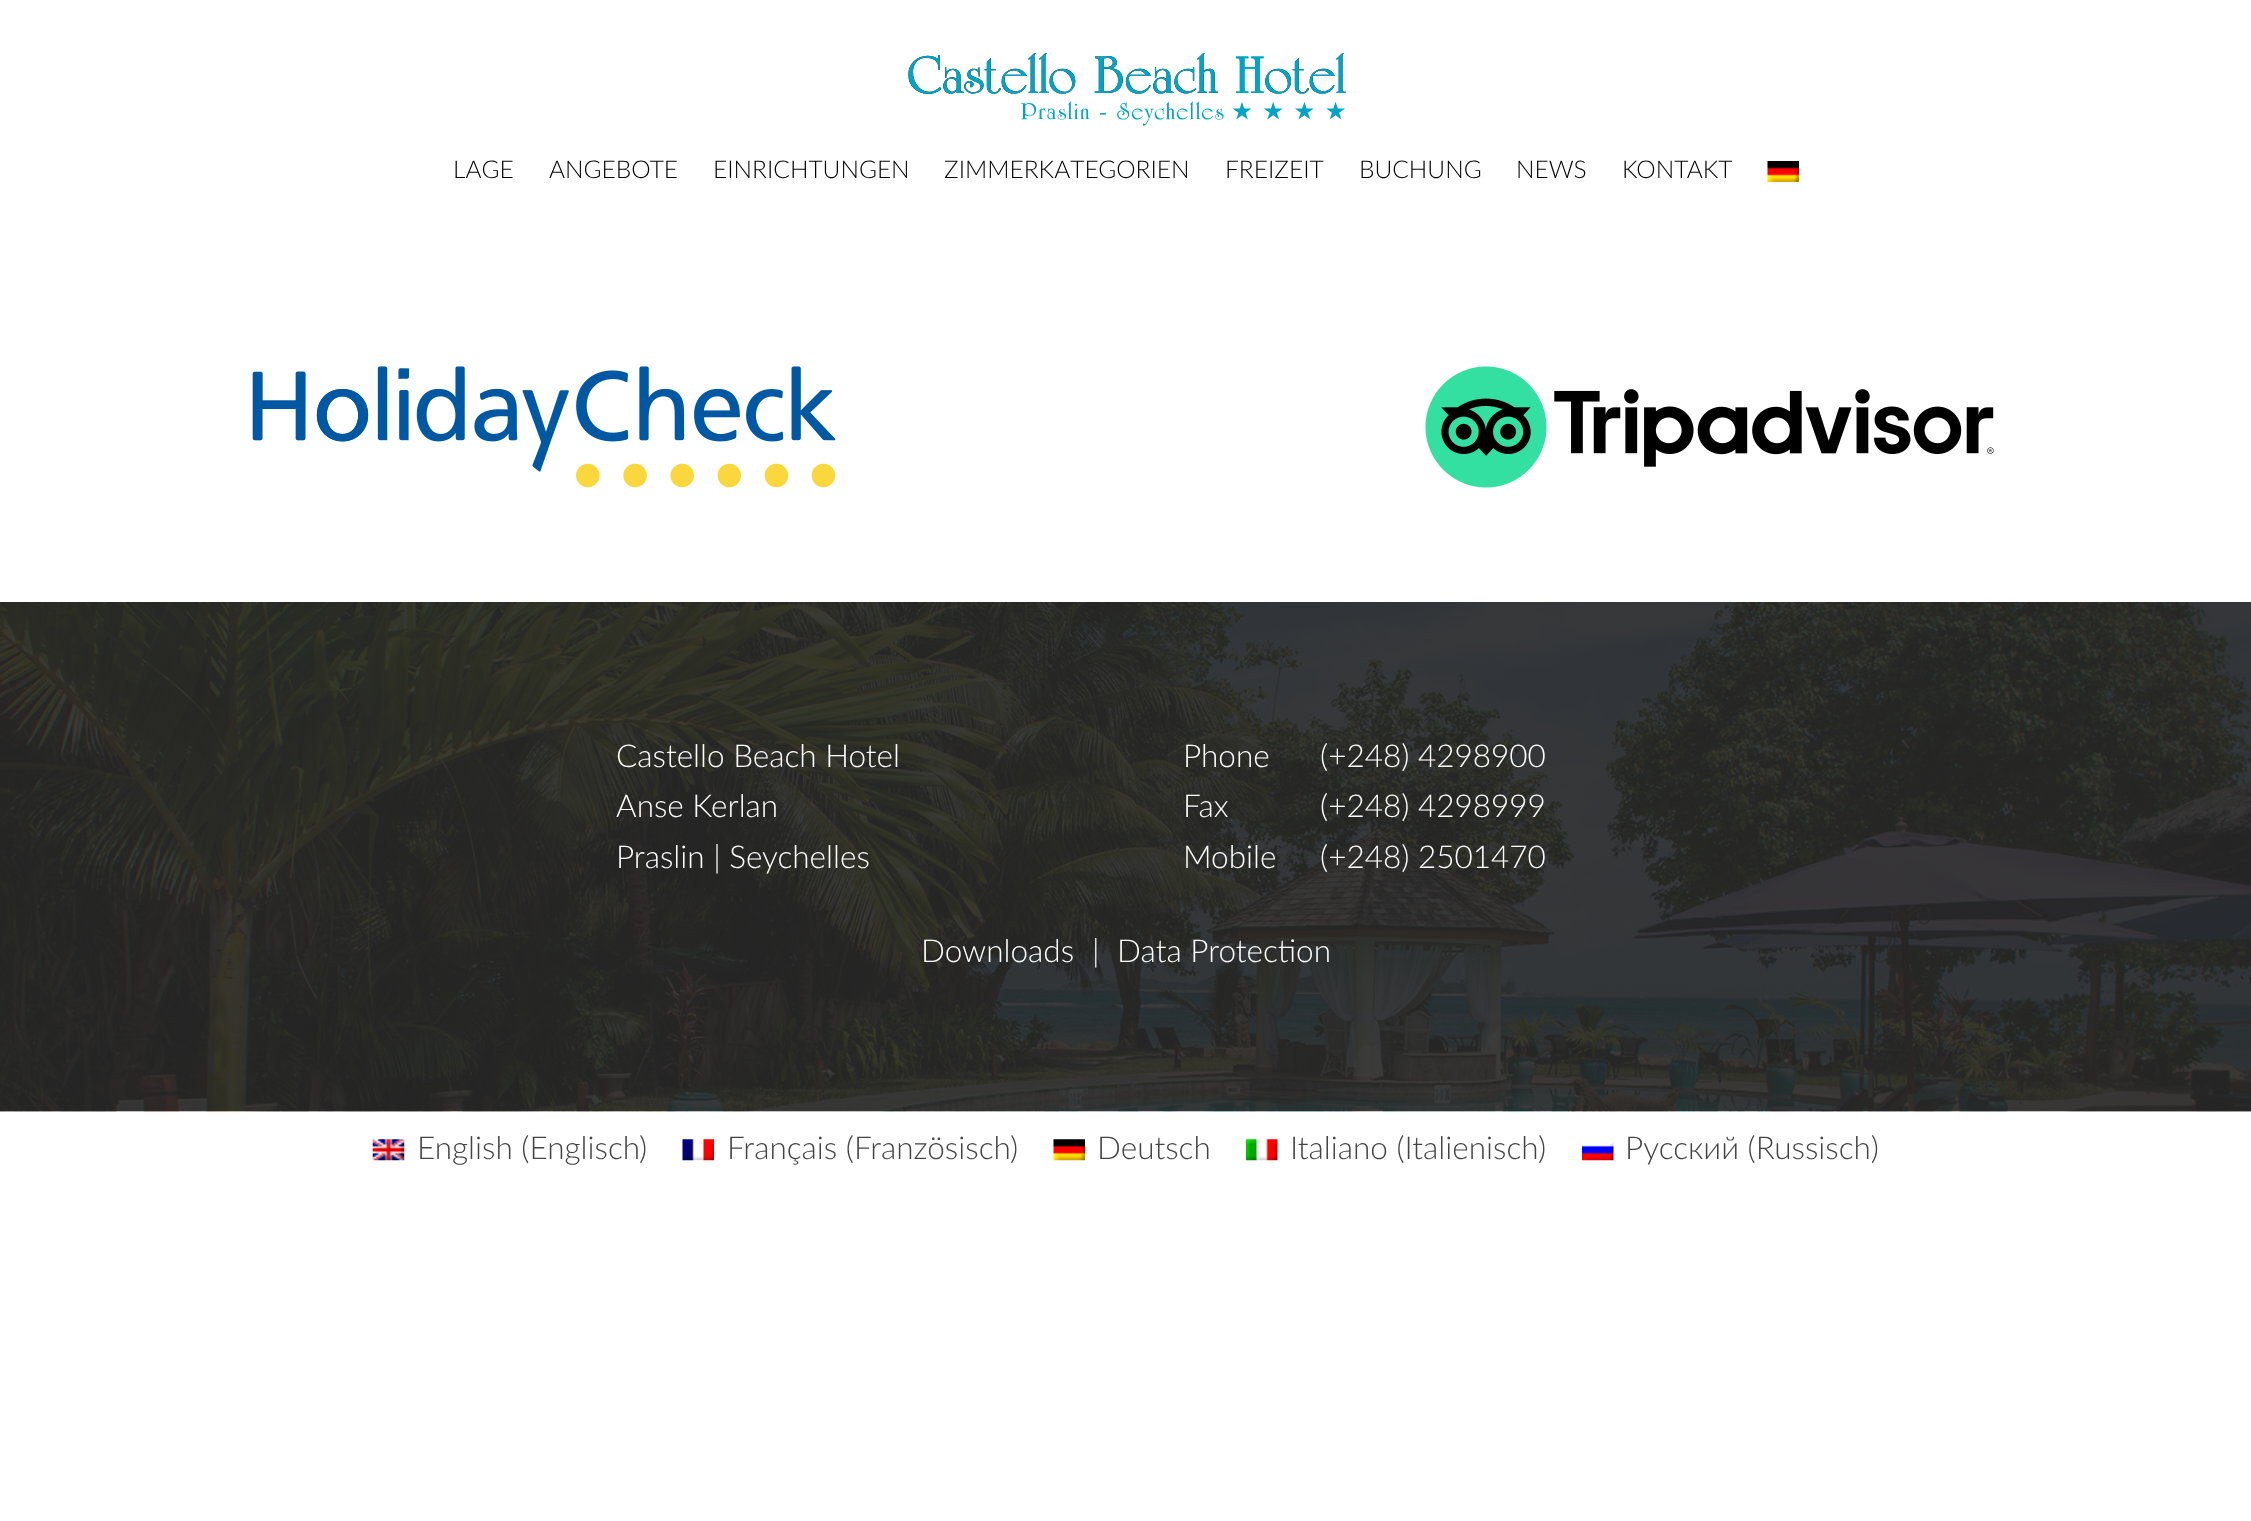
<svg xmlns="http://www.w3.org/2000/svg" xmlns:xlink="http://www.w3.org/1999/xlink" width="2251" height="1521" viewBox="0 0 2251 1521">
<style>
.cls-1{font:300 24.5px Lato;fill:#000000}
.cls-2{font:300 31.5px Lato;fill:#ffffff}
.cls-3{font:300 31.5px Lato;fill:#444444}
</style>
<rect width="100%" height="100%" fill="#ffffff"/>
<image xlink:href="image0.png" x="908" y="53" width="438" height="73"/>
<image xlink:href="image1.png" x="1767" y="161" width="32" height="21"/>
<image xlink:href="image2.png" x="252" y="366" width="584" height="122"/>
<image xlink:href="image3.png" x="1425" y="366" width="569" height="122"/>
<image xlink:href="image4.png" x="0" y="602" width="2251" height="510"/>
<image xlink:href="image5.png" x="372" y="1139" width="33" height="22"/>
<image xlink:href="image6.png" x="682" y="1139" width="32" height="22"/>
<image xlink:href="image7.png" x="1053" y="1139" width="32" height="22"/>
<image xlink:href="image8.png" x="1246" y="1139" width="32" height="22"/>
<image xlink:href="image9.png" x="1582" y="1142" width="32" height="19"/>
<text class="cls-1" x="453" y="178">LAGE</text>
<text class="cls-1" x="549" y="178">ANGEBOTE</text>
<text class="cls-1" x="713" y="178">EINRICHTUNGEN</text>
<text class="cls-1" x="944" y="178">ZIMMERKATEGORIEN</text>
<text class="cls-1" x="1225" y="178">FREIZEIT</text>
<text class="cls-1" x="1359" y="178">BUCHUNG</text>
<text class="cls-1" x="1516" y="178">NEWS</text>
<text class="cls-1" x="1622" y="178">KONTAKT</text>
<text class="cls-2"><tspan x="616" y="767">Castello Beach Hotel</tspan><tspan x="616" y="817">Anse Kerlan</tspan><tspan x="616" y="868">Praslin | Seychelles</tspan></text>
<text class="cls-2" x="1183" y="767">Phone</text>
<text class="cls-2" x="1320" y="767">(+248) 4298900</text>
<text class="cls-2" x="1183" y="817">Fax</text>
<text class="cls-2" x="1320" y="817">(+248) 4298999</text>
<text class="cls-2" x="1183" y="868">Mobile</text>
<text class="cls-2" x="1320" y="868">(+248) 2501470</text>
<text class="cls-2" x="921" y="962">Downloads</text>
<text class="cls-2" x="1092" y="962">|</text>
<text class="cls-2" x="1117" y="962">Data Protection</text>
<text class="cls-3" x="417" y="1159">English (Englisch</text>
<text class="cls-3" x="639" y="1159">)</text>
<text class="cls-3" x="727" y="1159">Français (Französisch</text>
<text class="cls-3" x="1010" y="1159">)</text>
<text class="cls-3" x="1097" y="1159">Deutsch</text>
<text class="cls-3" x="1290" y="1159">Italiano (Italienisch</text>
<text class="cls-3" x="1538" y="1159">)</text>
<text class="cls-3" x="1625" y="1159">Русский (Russisch)</text>
</svg>
